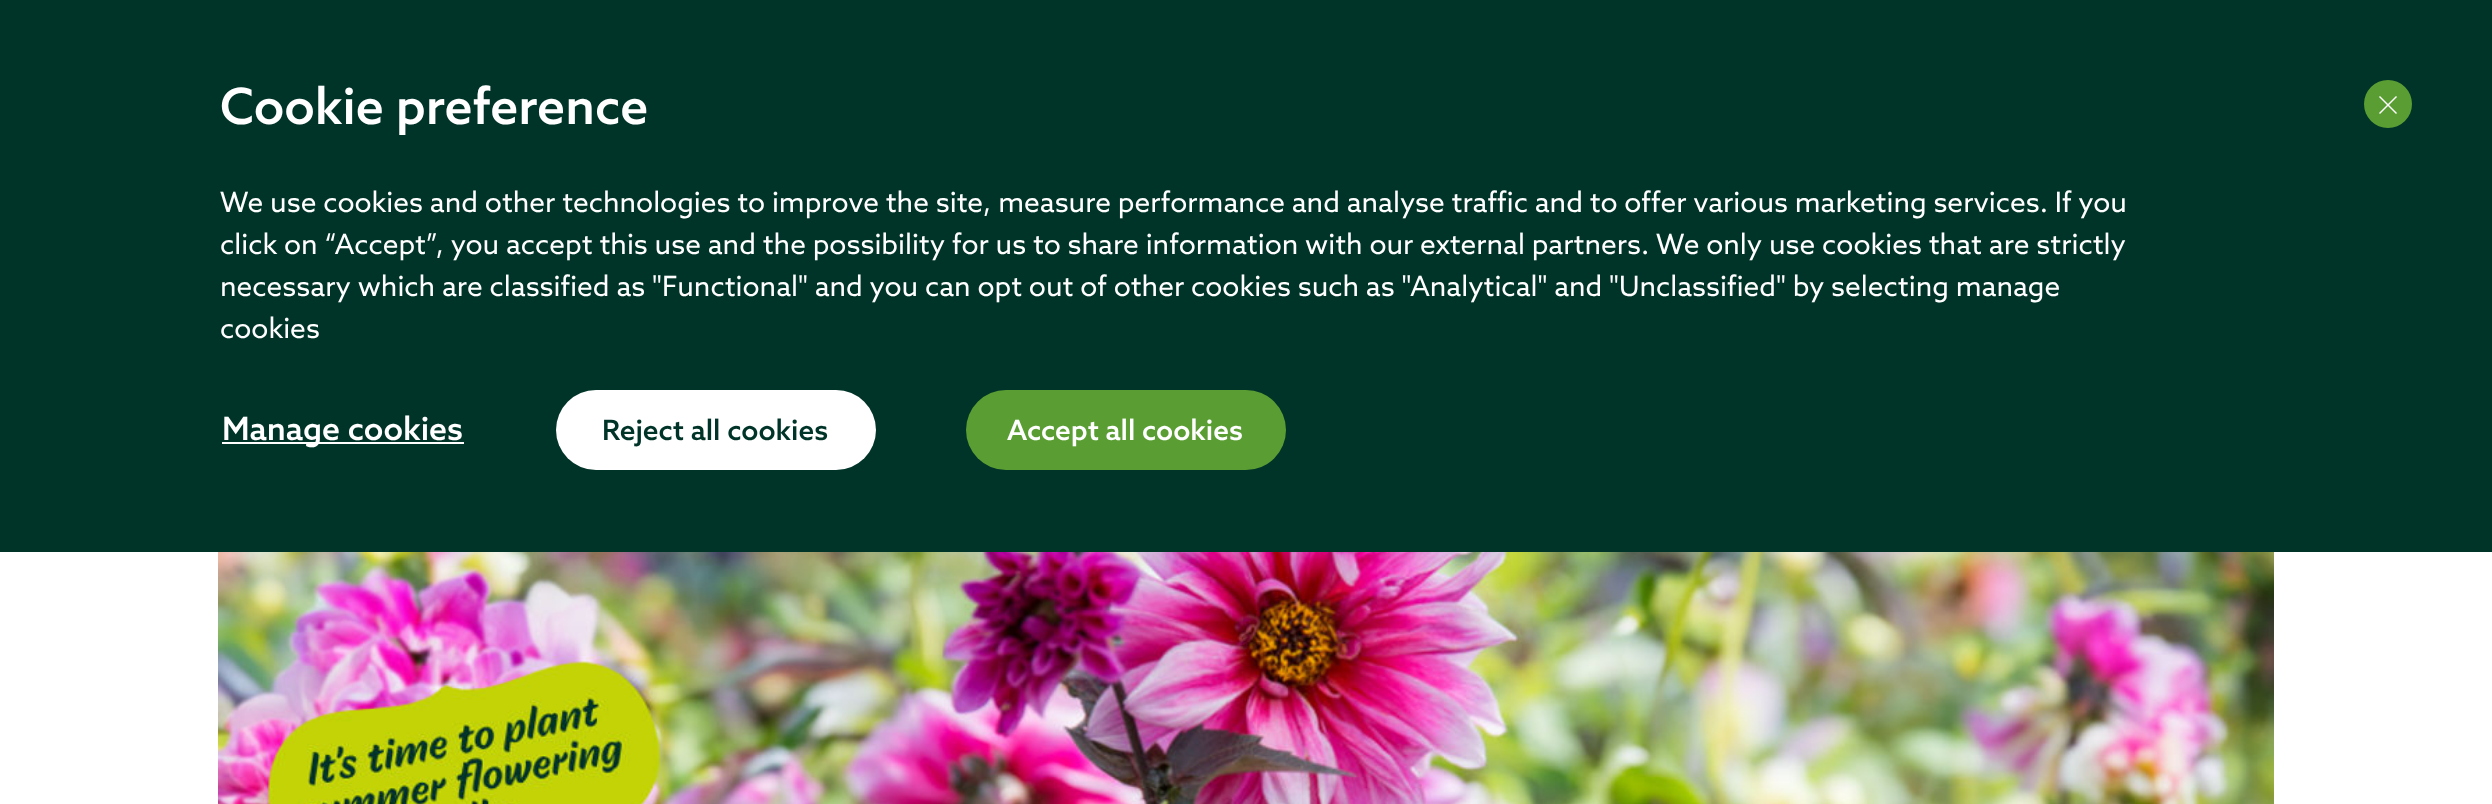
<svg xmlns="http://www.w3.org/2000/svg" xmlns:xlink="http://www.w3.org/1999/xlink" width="2492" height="804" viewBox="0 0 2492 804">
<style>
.cls-1{font:500 50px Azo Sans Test;fill:#ffffff}
.cls-2{font:28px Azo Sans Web;fill:#ffffff}
.cls-3{font:500 32px Azo Sans Test;fill:#ffffff}
.cls-4{font:500 28px Azo Sans Test;fill:#003428}
.cls-5{font:500 28px Azo Sans Test;fill:#ffffff}
</style>
<rect width="100%" height="100%" fill="#ffffff"/>
<rect fill="#003428" x="0" y="0" width="2492" height="552"/>
<circle fill="#5a9e33" cx="2388" cy="104" r="24"/>
<path fill="#ffffff" d="M2380 96L2397 113L2396 114L2379 97Z"/>
<path fill="#ffffff" d="M2379 113L2396 96L2397 97L2380 114Z"/>
<rect fill="#ffffff" x="222" y="442" width="242" height="2"/>
<rect fill="#ffffff" x="556" y="390" width="320" height="80" rx="40"/>
<rect fill="#5a9e33" x="966" y="390" width="320" height="80" rx="40"/>
<image xlink:href="image0.png" x="218" y="552" width="2056" height="252"/>
<text class="cls-1" x="220" y="124">Cookie preference</text>
<text class="cls-2"><tspan x="220" y="212">We use cookies and other technologies to improve the site, measure performance and analyse traffic and to offer various marketing services. If you</tspan><tspan x="220" y="254">click on “Accept”, you accept this use and the possibility for us to share information with our external partners. We only use cookies that are strictly</tspan><tspan x="220" y="296">necessary which are classified as "Functional" and you can opt out of other cookies such as "Analytical" and "Unclassified" by selecting manage</tspan><tspan x="220" y="338">cookies</tspan></text>
<text class="cls-3" x="222" y="440">Manage cookies</text>
<text class="cls-4" x="602" y="440">Reject all cookies</text>
<text class="cls-5" x="1007" y="440">Accept all cookies</text>
</svg>
